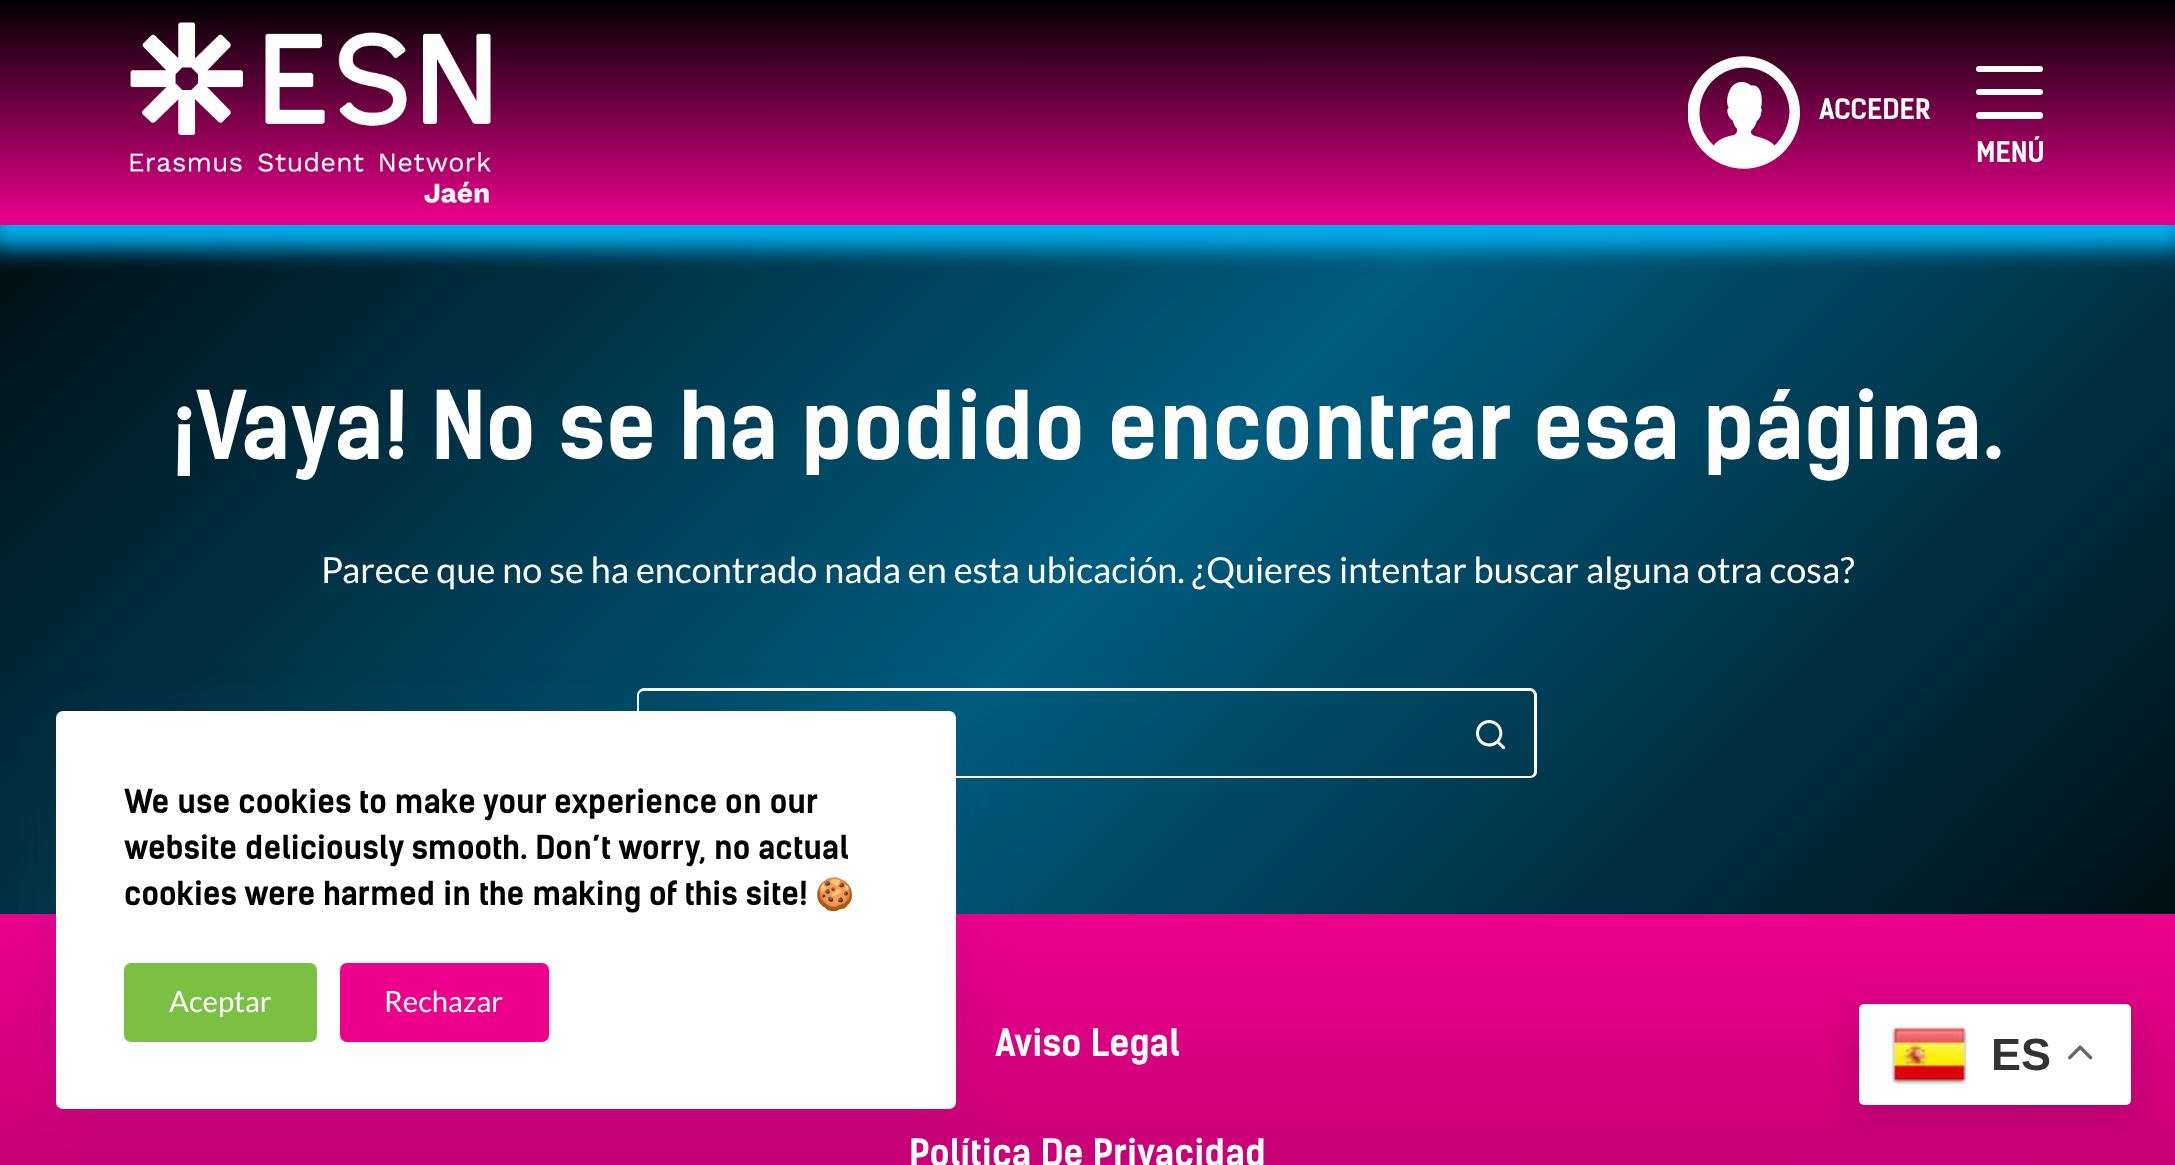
<svg xmlns="http://www.w3.org/2000/svg" xmlns:xlink="http://www.w3.org/1999/xlink" width="2175" height="1165" viewBox="0 0 2175 1165">
<style>
.cls-1{font:bold 27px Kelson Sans;fill:#ffffff}
.cls-2{font:bold 90px Kelson Sans;fill:#ffffff}
.cls-3{font:36px Lato;fill:#ffffff}
.cls-4{font:bold 36px Kelson Sans;fill:#ffffff}
.cls-5{font:bold 31.5px Kelson Sans;fill:#000000}
.cls-6{font:31.5px Noto Color Emoji;fill:#000000}
.cls-7{font:29.25px Lato;fill:#ffffff}
.cls-8{font:bold 45px Liberation Sans;fill:#333333}
</style>
<defs>
<linearGradient id="g1" gradientUnits="userSpaceOnUse" x1="1088" y1="0" x2="1088" y2="225"><stop offset="0" stop-color="#000000"/><stop offset="1" stop-color="#ec008c"/></linearGradient>
<linearGradient id="g2" gradientUnits="userSpaceOnUse" x1="1088" y1="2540" x2="1088" y2="914"><stop offset="0" stop-color="#000000"/><stop offset="1" stop-color="#ec008c"/></linearGradient>
</defs>
<rect width="100%" height="100%" fill="#ffffff"/>
<image xlink:href="image0.png" x="0" y="225" width="2175" height="689"/>
<rect fill="#00aeef" filter="blur(11px)" x="-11" y="0" width="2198" height="248"/>
<rect fill="url(#g1)" x="0" y="0" width="2175" height="225"/>
<image xlink:href="image1.png" x="130" y="22" width="361" height="182"/>
<image xlink:href="image2.png" x="1688" y="56" width="112" height="113"/>
<rect fill="#ffffff" x="1976" y="66" width="67" height="6" rx="3"/>
<rect fill="#ffffff" x="1976" y="89" width="67" height="6" rx="3"/>
<rect fill="#ffffff" x="1976" y="112" width="67" height="7" rx="3.5"/>
<path fill="#ffffff" fill-rule="evenodd" d="M644 688H1447V778H644C640 778 637 775 637 772V695C637 692 640 688 644 688ZM644 691H1447V776H644C641 776 639 774 639 772V695C639 693 641 691 644 691Z"/>
<path fill="#ffffff" fill-rule="evenodd" d="M1447 688H1530C1534 688 1537 692 1537 695V772C1537 775 1534 778 1530 778H1447ZM1447 691H1530C1532 691 1534 693 1534 695V772C1534 774 1532 776 1530 776H1447Z"/>
<image xlink:href="image3.png" x="1476" y="720" width="29" height="29"/>
<rect fill="url(#g2)" x="0" y="914" width="2175" height="251"/>
<rect fill="#223865" fill-opacity="0.15" filter="blur(34px)" x="68" y="734" width="877" height="375"/>
<rect fill="#ffffff" x="56" y="711" width="900" height="398" rx="7"/>
<rect fill="#7ac143" x="124" y="963" width="193" height="79" rx="7"/>
<rect fill="#ec008c" x="340" y="963" width="209" height="79" rx="7"/>
<rect fill="#000000" fill-opacity="0.15" filter="blur(17px)" x="1859" y="1015" width="272" height="101" rx="5"/>
<rect fill="#ffffff" x="1859" y="1004" width="272" height="101" rx="5"/>
<image xlink:href="image4.png" x="1892" y="1026" width="75" height="59"/>
<image xlink:href="image5.png" x="2068" y="1045" width="25" height="15"/>
<text class="cls-1" x="1819" y="119">ACCEDER</text>
<text class="cls-1" x="1976" y="162">MENÚ</text>
<text class="cls-2" x="173" y="459">¡Vaya! No se ha podido encontrar esa página.</text>
<text class="cls-3" x="321" y="583">Parece que no se ha encontrado nada en esta ubicación. ¿Quieres intentar buscar alguna otra cosa?</text>
<text class="cls-4" x="995" y="1056">Aviso Legal</text>
<text class="cls-4" x="909" y="1166">Política De Privacidad</text>
<text class="cls-5"><tspan x="124" y="813">We use cookies to make your experience on our</tspan><tspan x="124" y="859">website deliciously smooth. Don’t worry, no actual</tspan><tspan x="124" y="905">cookies were harmed in the making of this site!</tspan></text>
<text class="cls-6" x="815" y="905">🍪</text>
<text class="cls-7" x="169" y="1012">Aceptar</text>
<text class="cls-7" x="384" y="1012">Rechazar</text>
<text class="cls-8" x="1991" y="1070">ES</text>
</svg>
